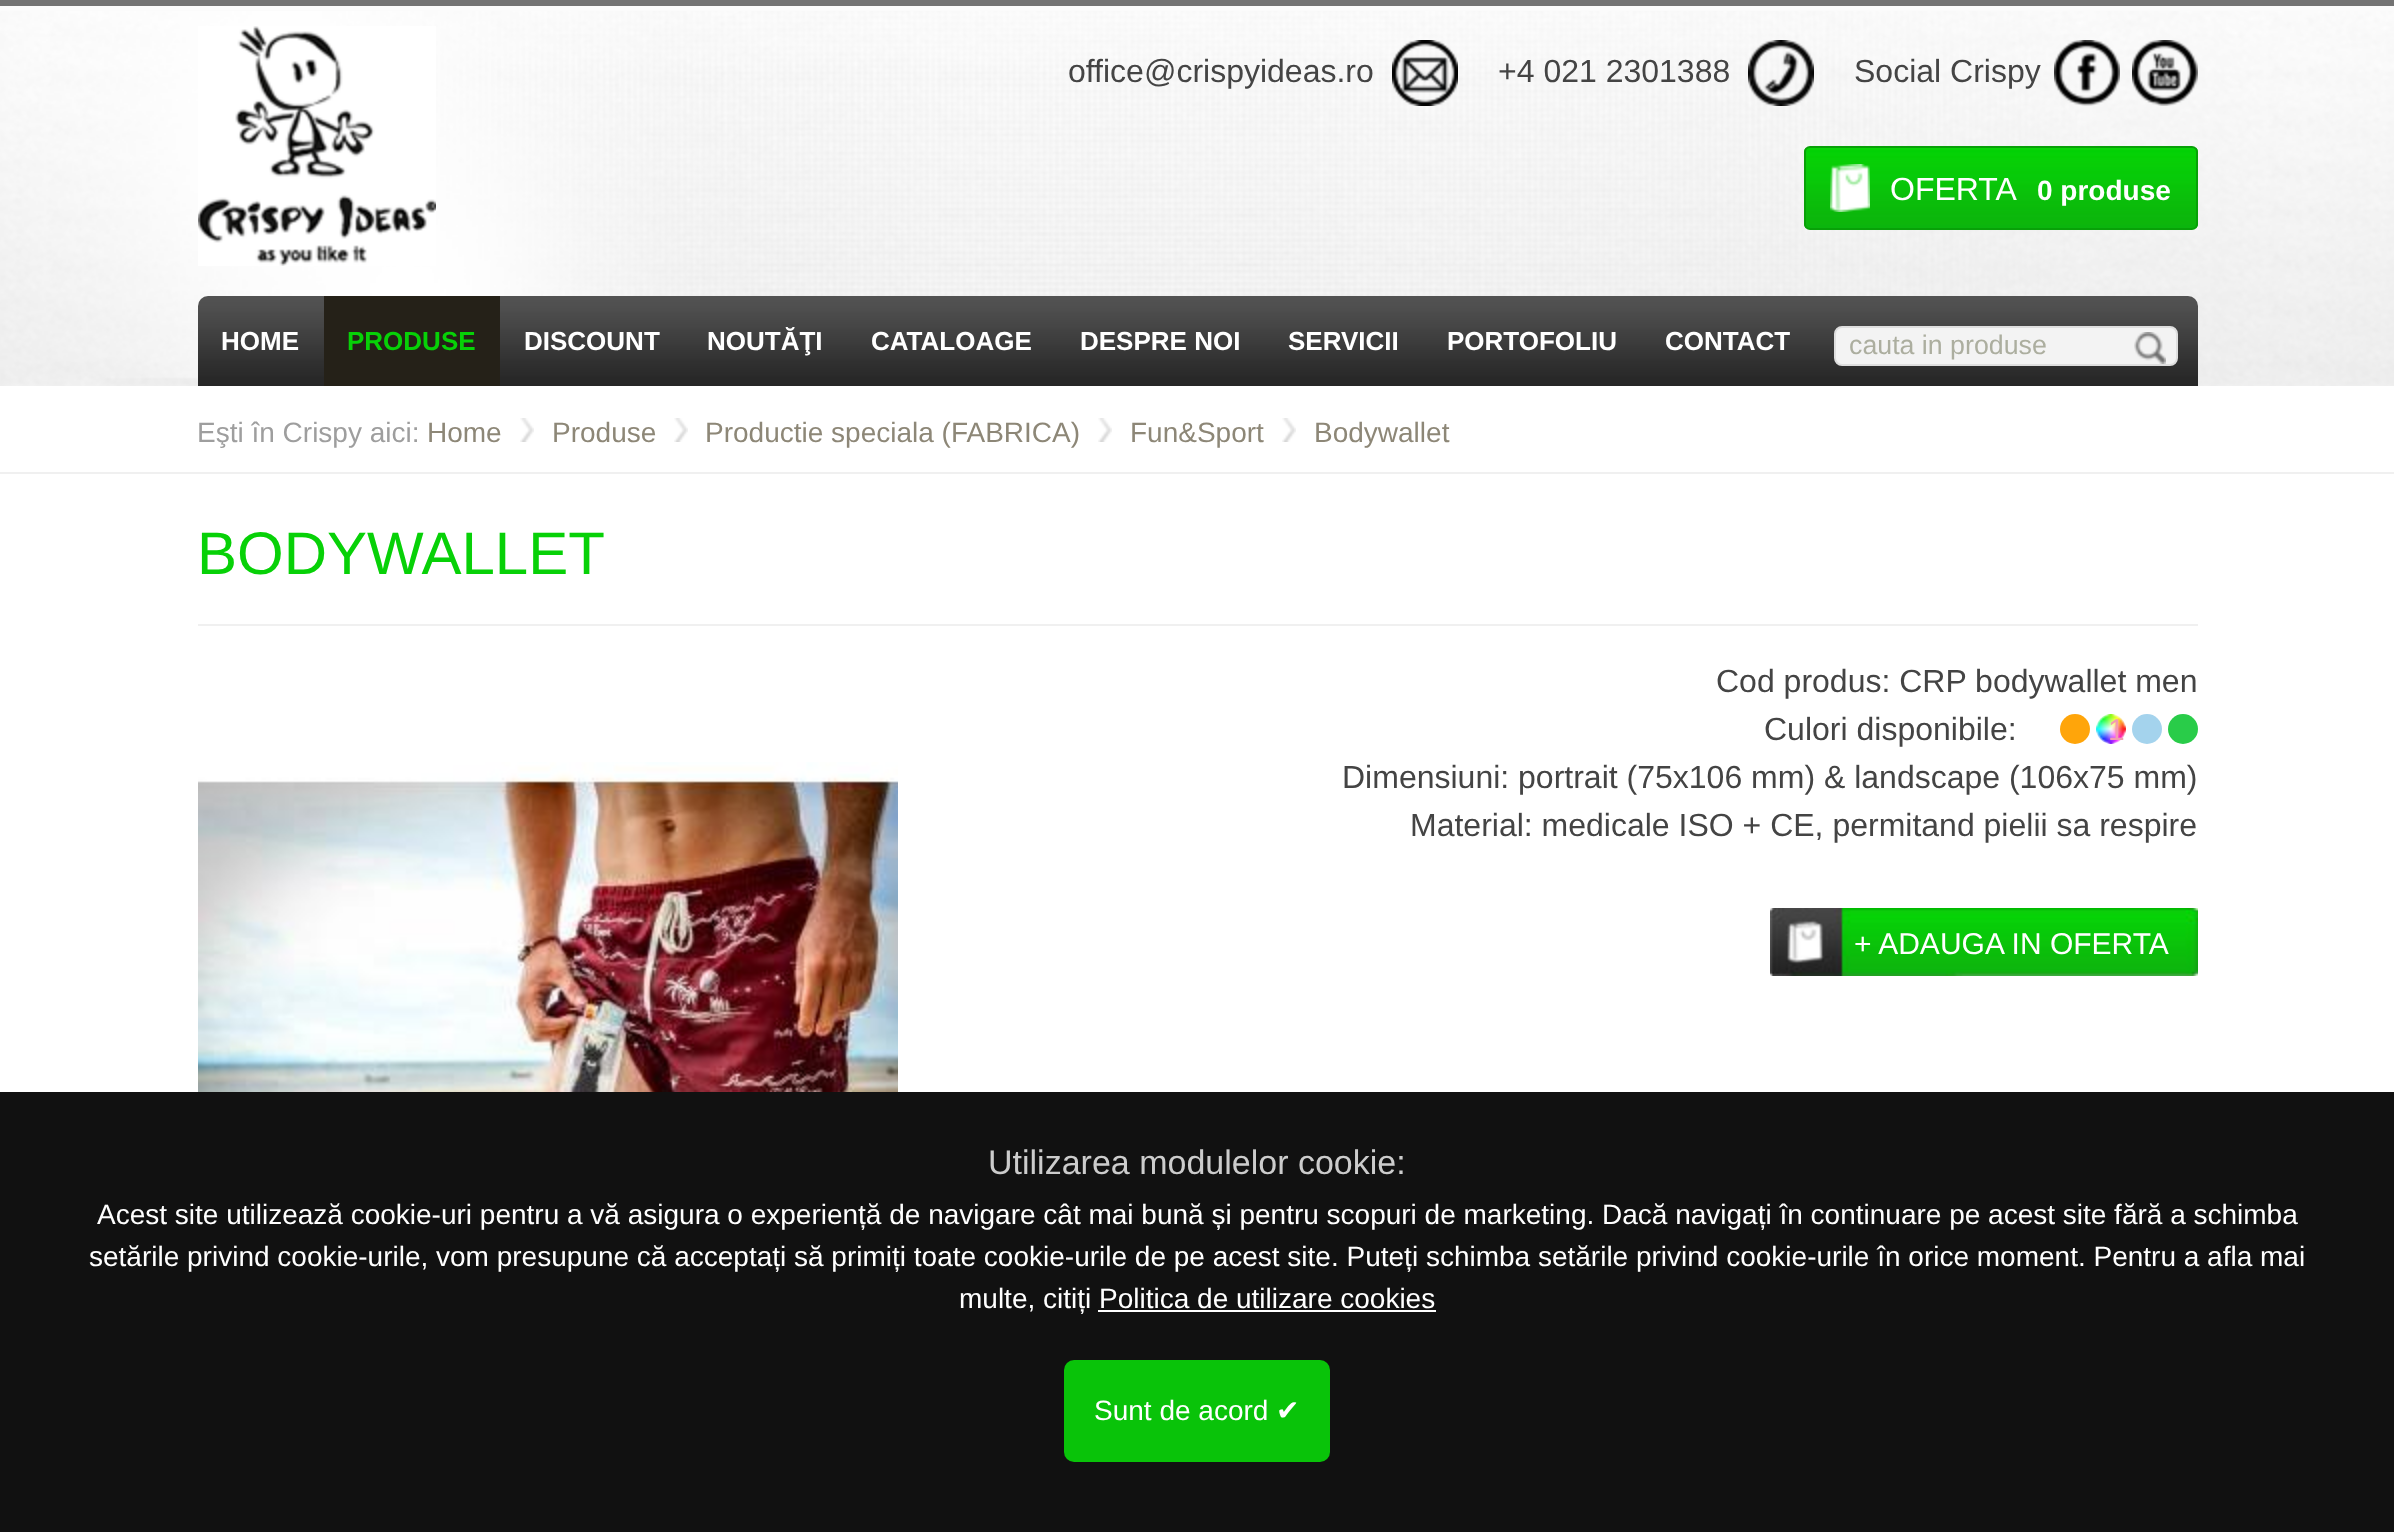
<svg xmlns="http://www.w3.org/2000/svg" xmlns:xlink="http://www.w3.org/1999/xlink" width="2394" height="1532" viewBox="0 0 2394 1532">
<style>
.cls-1{font:32px Arimo;fill:#444444}
.cls-2{font:32px Arimo;fill:#ffffff}
.cls-3{font:bold 28px Arimo;fill:#ffffff}
.cls-4{font:bold 26px Arimo;fill:#ffffff}
.cls-5{font:bold 26px Arimo;fill:#07d107}
.cls-6{font:26.75px Liberation Sans;fill:#acae9f}
.cls-7{font:28px Arimo;fill:#9e9e9e}
.cls-8{font:28px Arimo;fill:#8d8777}
.cls-9{font:60px Arimo;fill:#07d107}
.cls-10{font:32px Liberation Sans;fill:#444444}
.cls-11{font:30px Liberation Sans;fill:#f39bb0}
.cls-12{font:30px Liberation Sans;fill:#ffffff}
.cls-13{font:34px Arimo;fill:#cccccc}
.cls-14{font:28px Arimo;fill:#ffffff}
.cls-15{font:28px DejaVu Sans;fill:#ffffff}
</style>
<rect width="100%" height="100%" fill="#ffffff"/>
<rect fill="#fbfbfb" x="0" y="6" width="2394" height="5"/>
<image xlink:href="image0.png" x="0" y="11" width="2394" height="375"/>
<rect fill="#737373" x="0" y="0" width="2394" height="6"/>
<image xlink:href="image1.png" x="198" y="26" width="238" height="240"/>
<image xlink:href="image2.png" x="1392" y="40" width="66" height="66"/>
<image xlink:href="image3.png" x="1748" y="40" width="66" height="66"/>
<image xlink:href="image4.png" x="2054" y="40" width="66" height="66"/>
<image xlink:href="image5.png" x="2132" y="40" width="66" height="66"/>
<image xlink:href="image6.png" x="1804" y="148" width="394" height="80"/>
<rect fill="none" stroke="#08a108" stroke-width="2" x="1805" y="147" width="392" height="82" rx="5"/>
<image xlink:href="image7.png" x="1830" y="164" width="40" height="48"/>
<image xlink:href="image8.png" x="198" y="296" width="2000" height="90"/>
<rect fill="#252118" x="324" y="296" width="176" height="90"/>
<rect fill="#f3f3f3" stroke="#dedede" stroke-width="2" x="1835" y="327" width="342" height="38" rx="7"/>
<image xlink:href="image9.png" x="2134" y="332" width="32" height="32"/>
<rect fill="#f0f0f0" x="0" y="472" width="2394" height="2"/>
<image xlink:href="image10.png" x="520" y="418" width="14" height="24"/>
<image xlink:href="image10.png" x="674" y="418" width="14" height="24"/>
<image xlink:href="image10.png" x="1098" y="418" width="14" height="24"/>
<image xlink:href="image10.png" x="1282" y="418" width="14" height="24"/>
<rect fill="#f0f0f0" x="198" y="624" width="2000" height="2"/>
<image xlink:href="image11.png" x="198" y="762" width="700" height="330"/>
<circle fill="#ffa50a" cx="2075" cy="729" r="15"/>
<image xlink:href="image12.png" x="2096" y="714" width="30" height="30"/>
<circle fill="#a4d3ed" cx="2147" cy="729" r="15"/>
<circle fill="#29cc49" cx="2183" cy="729" r="15"/>
<image xlink:href="image13.png" x="1770" y="908" width="428" height="68"/>
<rect fill="#111111" x="0" y="1092" width="2394" height="440"/>
<rect fill="#ffffff" x="1098" y="1310" width="338" height="2"/>
<rect fill="#09c309" x="1064" y="1360" width="266" height="102" rx="10"/>
<text class="cls-1" x="1068" y="82">office@crispyideas.ro</text>
<text class="cls-1" x="1498" y="82">+4 021 2301388</text>
<text class="cls-1" x="1854" y="82">Social Crispy</text>
<text class="cls-2" x="1890" y="200">OFERTA</text>
<text class="cls-3" x="2037" y="200">0 produse</text>
<text class="cls-4" x="221" y="350">HOME</text>
<text class="cls-5" x="347" y="350">PRODUSE</text>
<text class="cls-4" x="524" y="350">DISCOUNT</text>
<text class="cls-4" x="707" y="350">NOUTĂŢI</text>
<text class="cls-4" x="871" y="350">CATALOAGE</text>
<text class="cls-4" x="1080" y="350">DESPRE NOI</text>
<text class="cls-4" x="1288" y="350">SERVICII</text>
<text class="cls-4" x="1447" y="350">PORTOFOLIU</text>
<text class="cls-4" x="1665" y="350">CONTACT</text>
<text class="cls-6" x="1849" y="354">cauta in produse</text>
<text class="cls-7" x="197" y="442">Eşti în Crispy aici:</text>
<text class="cls-8" x="427" y="442">Home</text>
<text class="cls-8" x="552" y="442">Produse</text>
<text class="cls-8" x="705" y="442">Productie speciala (FABRICA)</text>
<text class="cls-8" x="1130" y="442">Fun&amp;Sport</text>
<text class="cls-8" x="1314" y="442">Bodywallet</text>
<text class="cls-9" x="197" y="574">BODYWALLET</text>
<text class="cls-10" x="1716" y="692">Cod produs: CRP bodywallet men</text>
<text class="cls-10" x="1764" y="740">Culori disponibile:</text>
<text class="cls-11" x="2108" y="740">1</text>
<text class="cls-10" x="1342" y="788">Dimensiuni: portrait (75x106 mm) &amp; landscape (106x75 mm)</text>
<text class="cls-10" x="1410" y="836">Material: medicale ISO + CE, permitand pielii sa respire</text>
<text class="cls-12" x="1854" y="954">+ ADAUGA IN OFERTA</text>
<text class="cls-13" x="988" y="1174">Utilizarea modulelor cookie:</text>
<text class="cls-14" x="97" y="1224">Acest site utilizează cookie-uri pentru a vă asigura o experiență de navigare cât mai bună și pentru scopuri de marketing. Dacă navigați în continuare pe acest site fără a schimba</text>
<text class="cls-14" x="89" y="1266">setările privind cookie-urile, vom presupune că acceptați să primiți toate cookie-urile de pe acest site. Puteți schimba setările privind cookie-urile în orice moment. Pentru a afla mai</text>
<text class="cls-14" x="959" y="1308">multe, citiți Politica de utilizare cookies</text>
<text class="cls-14" x="1094" y="1420">Sunt de acord</text>
<text class="cls-15" x="1276" y="1420">✔</text>
</svg>
